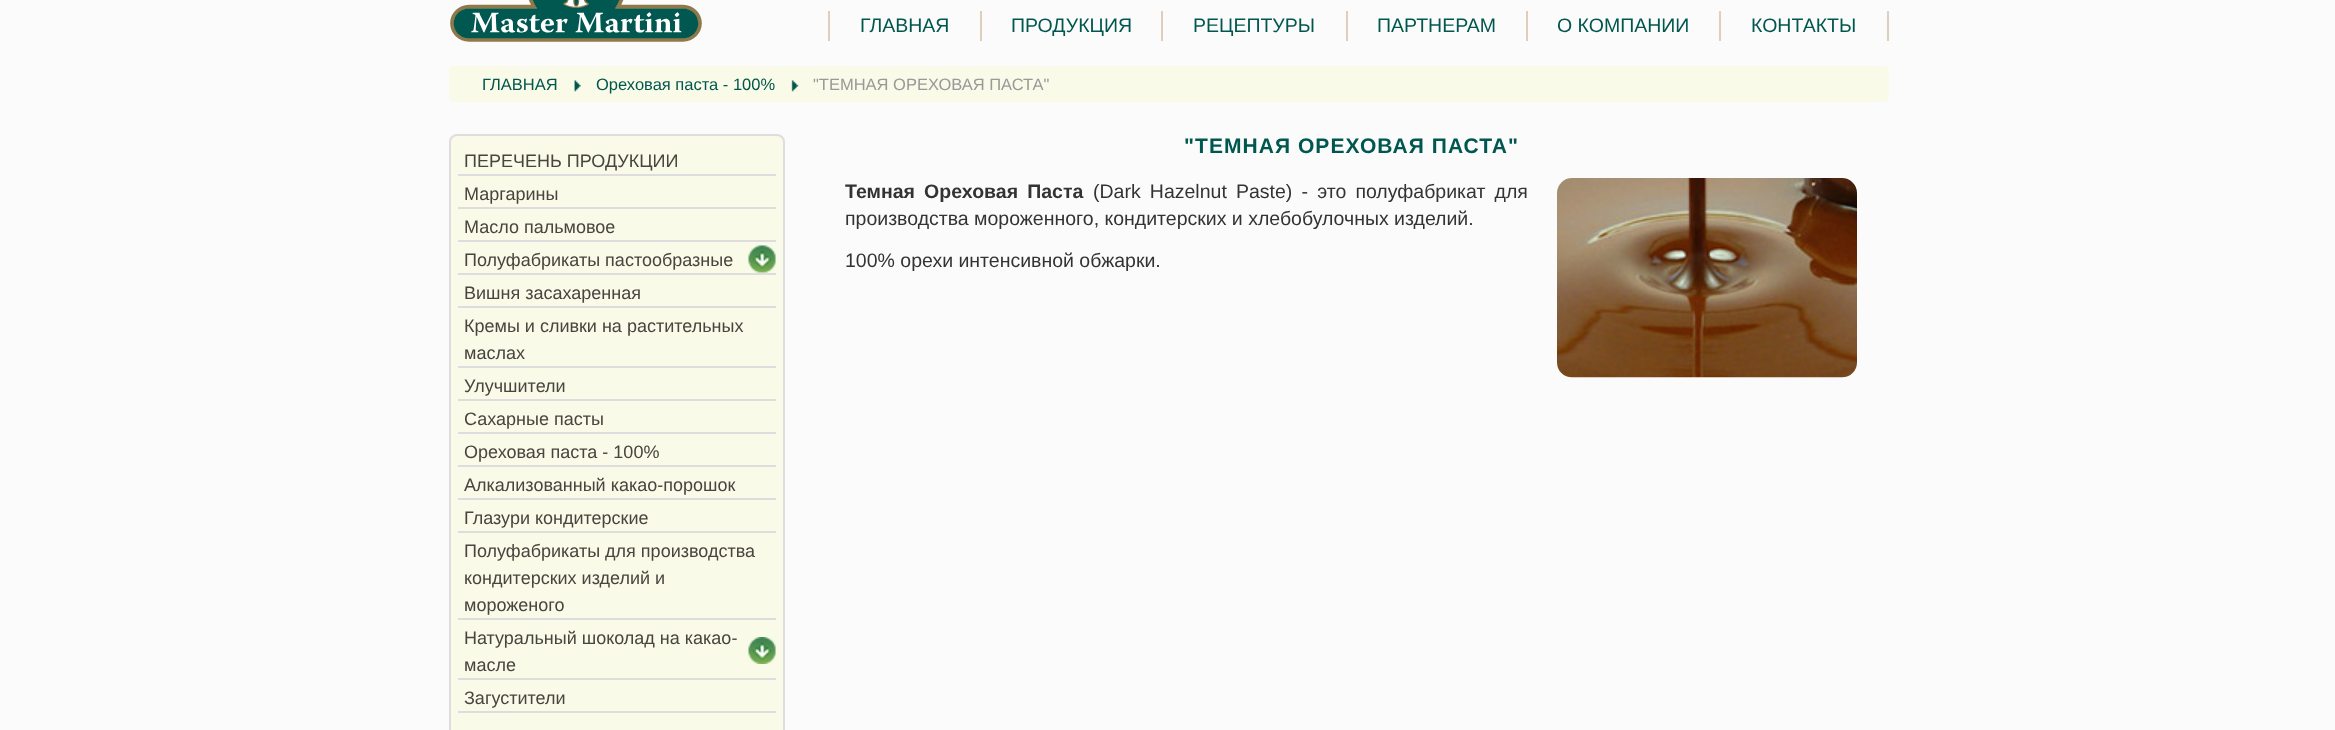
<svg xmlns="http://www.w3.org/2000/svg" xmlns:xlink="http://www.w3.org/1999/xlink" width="2335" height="730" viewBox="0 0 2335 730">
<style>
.cls-1{font:19.5px Liberation Sans;fill:#00574f}
.cls-2{font:16.5px Liberation Sans;fill:#00574f}
.cls-3{font:16.5px Liberation Sans;fill:#999999}
.cls-4{font:18px Liberation Sans;fill:#48443e}
.cls-5{font:bold 21px Liberation Sans;letter-spacing:1.05px;fill:#00574f}
.cls-6{font:bold 19.5px Liberation Sans;fill:#333333}
.cls-7{font:19.5px Liberation Sans;fill:#333333}
</style>
<rect width="100%" height="100%" fill="#fbfbfb"/>
<image xlink:href="image0.png" x="450" y="0" width="252" height="42"/>
<rect fill="#decebb" x="828" y="11" width="2" height="30"/>
<rect fill="#decebb" x="980" y="11" width="2" height="30"/>
<rect fill="#decebb" x="1161" y="11" width="2" height="30"/>
<rect fill="#decebb" x="1346" y="11" width="2" height="30"/>
<rect fill="#decebb" x="1526" y="11" width="2" height="30"/>
<rect fill="#decebb" x="1887" y="11" width="2" height="30"/>
<rect fill="#decebb" x="1719" y="11" width="2" height="30"/>
<rect fill="#f9fae8" x="449" y="66" width="1440" height="36" rx="6"/>
<image xlink:href="image1.png" x="574" y="80" width="7" height="12"/>
<image xlink:href="image2.png" x="791" y="80" width="8" height="12"/>
<rect fill="#f9fae8" stroke="#dddddd" stroke-width="2" x="450" y="135" width="334" height="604" rx="7"/>
<rect fill="#dddddd" x="458" y="174" width="318" height="2"/>
<rect fill="#dddddd" x="458" y="207" width="318" height="2"/>
<rect fill="#dddddd" x="458" y="240" width="318" height="2"/>
<rect fill="#dddddd" x="458" y="273" width="318" height="2"/>
<image xlink:href="image3.png" x="748" y="245" width="28" height="28"/>
<rect fill="#dddddd" x="458" y="306" width="318" height="2"/>
<rect fill="#dddddd" x="458" y="366" width="318" height="2"/>
<rect fill="#dddddd" x="458" y="399" width="318" height="2"/>
<rect fill="#dddddd" x="458" y="432" width="318" height="2"/>
<rect fill="#dddddd" x="458" y="465" width="318" height="2"/>
<rect fill="#dddddd" x="458" y="498" width="318" height="2"/>
<rect fill="#dddddd" x="458" y="531" width="318" height="2"/>
<rect fill="#dddddd" x="458" y="618" width="318" height="2"/>
<rect fill="#dddddd" x="458" y="678" width="318" height="2"/>
<image xlink:href="image4.png" x="748" y="637" width="28" height="27"/>
<rect fill="#dddddd" x="458" y="711" width="318" height="2"/>
<image xlink:href="image5.png" x="1557" y="178" width="300" height="200"/>
<text class="cls-1" x="860" y="32">ГЛАВНАЯ</text>
<text class="cls-1" x="1011" y="32">ПРОДУКЦИЯ</text>
<text class="cls-1" x="1193" y="32">РЕЦЕПТУРЫ</text>
<text class="cls-1" x="1377" y="32">ПАРТНЕРАМ</text>
<text class="cls-1" x="1557" y="32">О КОМПАНИИ</text>
<text class="cls-1" x="1751" y="32">КОНТАКТЫ</text>
<text class="cls-2" x="482" y="90">ГЛАВНАЯ</text>
<text class="cls-2" x="596" y="90">Ореховая паста - 100%</text>
<text class="cls-3" x="813" y="90">"ТЕМНАЯ ОРЕХОВАЯ ПАСТА"</text>
<text class="cls-4"><tspan x="464" y="167">ПЕРЕЧЕНЬ ПРОДУКЦИИ</tspan><tspan x="464" y="200">Маргарины</tspan><tspan x="464" y="233">Масло пальмовое</tspan><tspan x="464" y="266">Полуфабрикаты пастообразные</tspan><tspan x="464" y="299">Вишня засахаренная</tspan><tspan x="464" y="332">Кремы и сливки на растительных</tspan><tspan x="464" y="359">маслах</tspan><tspan x="464" y="392">Улучшители</tspan><tspan x="464" y="425">Сахарные пасты</tspan><tspan x="464" y="458">Ореховая паста - 100%</tspan><tspan x="464" y="491">Алкализованный какао-порошок</tspan><tspan x="464" y="524">Глазури кондитерские</tspan><tspan x="464" y="557">Полуфабрикаты для производства</tspan><tspan x="464" y="584">кондитерских изделий и</tspan><tspan x="464" y="611">мороженого</tspan><tspan x="464" y="644">Натуральный шоколад на какао-</tspan><tspan x="464" y="671">масле</tspan><tspan x="464" y="704">Загустители</tspan></text>
<text class="cls-5" x="1184" y="153">"ТЕМНАЯ ОРЕХОВАЯ ПАСТА"</text>
<text class="cls-6" x="845" y="198" word-spacing="3.75">Темная Ореховая Паста</text>
<text class="cls-7" x="1093" y="198" word-spacing="3.75">(Dark Hazelnut Paste) - это полуфабрикат для</text>
<text class="cls-7" x="845" y="225">производства мороженного, кондитерских и хлебобулочных изделий.</text>
<text class="cls-7" x="845" y="267">100% орехи интенсивной обжарки.</text>
</svg>
